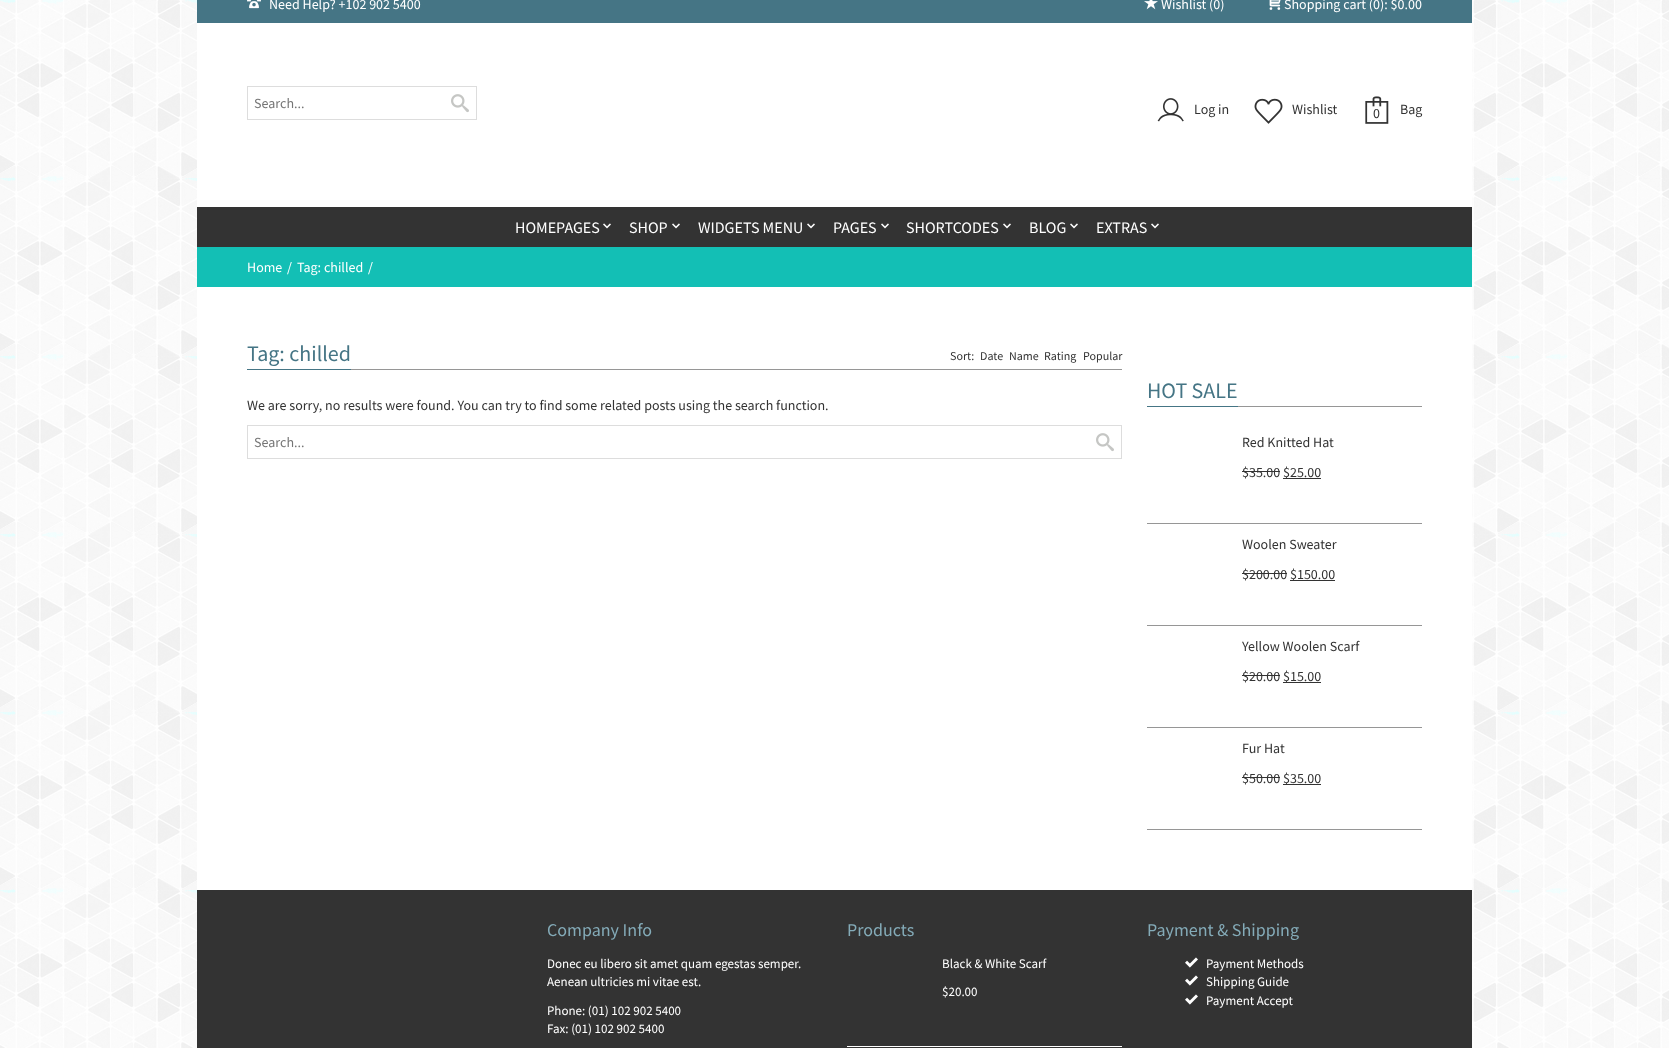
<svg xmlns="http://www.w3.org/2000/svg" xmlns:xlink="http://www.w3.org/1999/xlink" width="1669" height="1048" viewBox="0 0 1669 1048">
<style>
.cls-1{font:14px Source Sans Pro;fill:#ffffff}
.cls-2{font:14px Source Sans Pro;fill:#757575}
.cls-3{font:14px Source Sans Pro;fill:#333333}
.cls-4{font:16px Source Sans Pro;fill:#ffffff}
.cls-5{font:22px Source Sans Pro;fill:#457585}
.cls-6{font:12px Source Sans Pro;fill:#333333}
.cls-7{font:18px Source Sans Pro;fill:#84abb8}
.cls-8{font:13px Source Sans Pro;fill:#ffffff}
</style>
<rect width="100%" height="100%" fill="#ffffff"/>
<image xlink:href="image0.png" x="0" y="0" width="1669" height="1048"/>
<rect fill="#ffffff" x="197" y="23" width="1275" height="867"/>
<rect fill="#457585" x="197" y="0" width="1275" height="23"/>
<image xlink:href="image1.png" x="247" y="0" width="14" height="9"/>
<image xlink:href="image2.png" x="1144" y="0" width="14" height="10"/>
<image xlink:href="image3.png" x="1269" y="0" width="12" height="10"/>
<rect fill="none" stroke="#dddddd" x="247.5" y="86.5" width="229" height="33"/>
<image xlink:href="image4.png" x="451" y="94" width="18" height="19"/>
<image xlink:href="image5.png" x="1157" y="98" width="27" height="24"/>
<image xlink:href="image6.png" x="1254" y="98" width="29" height="26"/>
<image xlink:href="image7.png" x="1365" y="96" width="24" height="28"/>
<rect fill="#333333" x="197" y="207" width="1275" height="40"/>
<image xlink:href="image8.png" x="603" y="223" width="8" height="6"/>
<image xlink:href="image8.png" x="672" y="223" width="8" height="6"/>
<image xlink:href="image8.png" x="807" y="223" width="8" height="6"/>
<image xlink:href="image8.png" x="881" y="223" width="8" height="6"/>
<image xlink:href="image8.png" x="1003" y="223" width="8" height="6"/>
<image xlink:href="image8.png" x="1070" y="223" width="8" height="6"/>
<image xlink:href="image8.png" x="1151" y="223" width="8" height="6"/>
<rect fill="#13bfb5" x="197" y="247" width="1275" height="40"/>
<rect fill="#969696" x="351" y="369" width="771" height="1"/>
<rect fill="#457585" x="247" y="369" width="104" height="1"/>
<rect fill="none" stroke="#dddddd" x="247.5" y="425.5" width="874" height="33"/>
<image xlink:href="image4.png" x="1096" y="433" width="18" height="19"/>
<rect fill="#969696" x="1238" y="406" width="184" height="1"/>
<rect fill="#457585" x="1147" y="406" width="91" height="1"/>
<rect fill="#969696" x="1147" y="523" width="275" height="1"/>
<rect fill="#333333" x="1242" y="471" width="38" height="1"/>
<rect fill="#333333" x="1283" y="478" width="38" height="1"/>
<rect fill="#969696" x="1147" y="625" width="275" height="1"/>
<rect fill="#333333" x="1242" y="573" width="45" height="1"/>
<rect fill="#333333" x="1290" y="580" width="45" height="1"/>
<rect fill="#969696" x="1147" y="727" width="275" height="1"/>
<rect fill="#333333" x="1242" y="675" width="38" height="1"/>
<rect fill="#333333" x="1283" y="682" width="38" height="1"/>
<rect fill="#969696" x="1147" y="829" width="275" height="1"/>
<rect fill="#333333" x="1242" y="777" width="38" height="1"/>
<rect fill="#333333" x="1283" y="784" width="38" height="1"/>
<rect fill="#333333" x="197" y="890" width="1275" height="158"/>
<rect fill="#ffffff" x="847" y="1046" width="275" height="1"/>
<image xlink:href="image9.png" x="1185" y="957" width="13" height="11"/>
<image xlink:href="image9.png" x="1185" y="975" width="13" height="11"/>
<image xlink:href="image9.png" x="1185" y="994" width="13" height="11"/>
<text class="cls-1" x="269" y="9">Need Help? +102 902 5400</text>
<text class="cls-1" x="1161" y="9">Wishlist (0)</text>
<text class="cls-1" x="1284" y="9">Shopping cart (0): $0.00</text>
<text class="cls-2" x="254" y="108">Search...</text>
<text class="cls-3" x="1194" y="114">Log in</text>
<text class="cls-3" x="1292" y="114">Wishlist</text>
<text class="cls-3" x="1400" y="114">Bag</text>
<text class="cls-3" x="1373" y="118">0</text>
<text class="cls-4" x="515" y="233">HOMEPAGES</text>
<text class="cls-4" x="629" y="233">SHOP</text>
<text class="cls-4" x="698" y="233">WIDGETS MENU</text>
<text class="cls-4" x="833" y="233">PAGES</text>
<text class="cls-4" x="906" y="233">SHORTCODES</text>
<text class="cls-4" x="1029" y="233">BLOG</text>
<text class="cls-4" x="1096" y="233">EXTRAS</text>
<text class="cls-1" x="247" y="272">Home</text>
<text class="cls-1" x="287" y="272">/</text>
<text class="cls-1" x="297" y="272">Tag: chilled</text>
<text class="cls-1" x="368" y="272">/</text>
<text class="cls-5" x="247" y="361">Tag: chilled</text>
<text class="cls-6" x="950" y="360">Sort:</text>
<text class="cls-6" x="980" y="360">Date</text>
<text class="cls-6" x="1009" y="360">Name</text>
<text class="cls-6" x="1044" y="360">Rating</text>
<text class="cls-6" x="1083" y="360">Popular</text>
<text class="cls-3" x="247" y="410">We are sorry, no results were found. You can try to find some related posts using the search function.</text>
<text class="cls-2" x="254" y="447">Search...</text>
<text class="cls-5" x="1147" y="398">HOT SALE</text>
<text class="cls-3" x="1242" y="447">Red Knitted Hat</text>
<text class="cls-3" x="1242" y="477">$35.00</text>
<text class="cls-3" x="1283" y="477">$25.00</text>
<text class="cls-3" x="1242" y="549">Woolen Sweater</text>
<text class="cls-3" x="1242" y="579">$200.00</text>
<text class="cls-3" x="1290" y="579">$150.00</text>
<text class="cls-3" x="1242" y="651">Yellow Woolen Scarf</text>
<text class="cls-3" x="1242" y="681">$20.00</text>
<text class="cls-3" x="1283" y="681">$15.00</text>
<text class="cls-3" x="1242" y="753">Fur Hat</text>
<text class="cls-3" x="1242" y="783">$50.00</text>
<text class="cls-3" x="1283" y="783">$35.00</text>
<text class="cls-7" x="547" y="936">Company Info</text>
<text class="cls-8"><tspan x="547" y="968">Donec eu libero sit amet quam egestas semper.</tspan><tspan x="547" y="986">Aenean ultricies mi vitae est.</tspan></text>
<text class="cls-8"><tspan x="547" y="1015">Phone: (01) 102 902 5400</tspan><tspan x="547" y="1033">Fax: (01) 102 902 5400</tspan></text>
<text class="cls-7" x="847" y="936">Products</text>
<text class="cls-8" x="942" y="968">Black &amp; White Scarf</text>
<text class="cls-8" x="942" y="996">$20.00</text>
<text class="cls-7" x="1147" y="936">Payment &amp; Shipping</text>
<text class="cls-8"><tspan x="1206" y="968">Payment Methods</tspan><tspan x="1206" y="986">Shipping Guide</tspan><tspan x="1206" y="1005">Payment Accept</tspan></text>
</svg>
